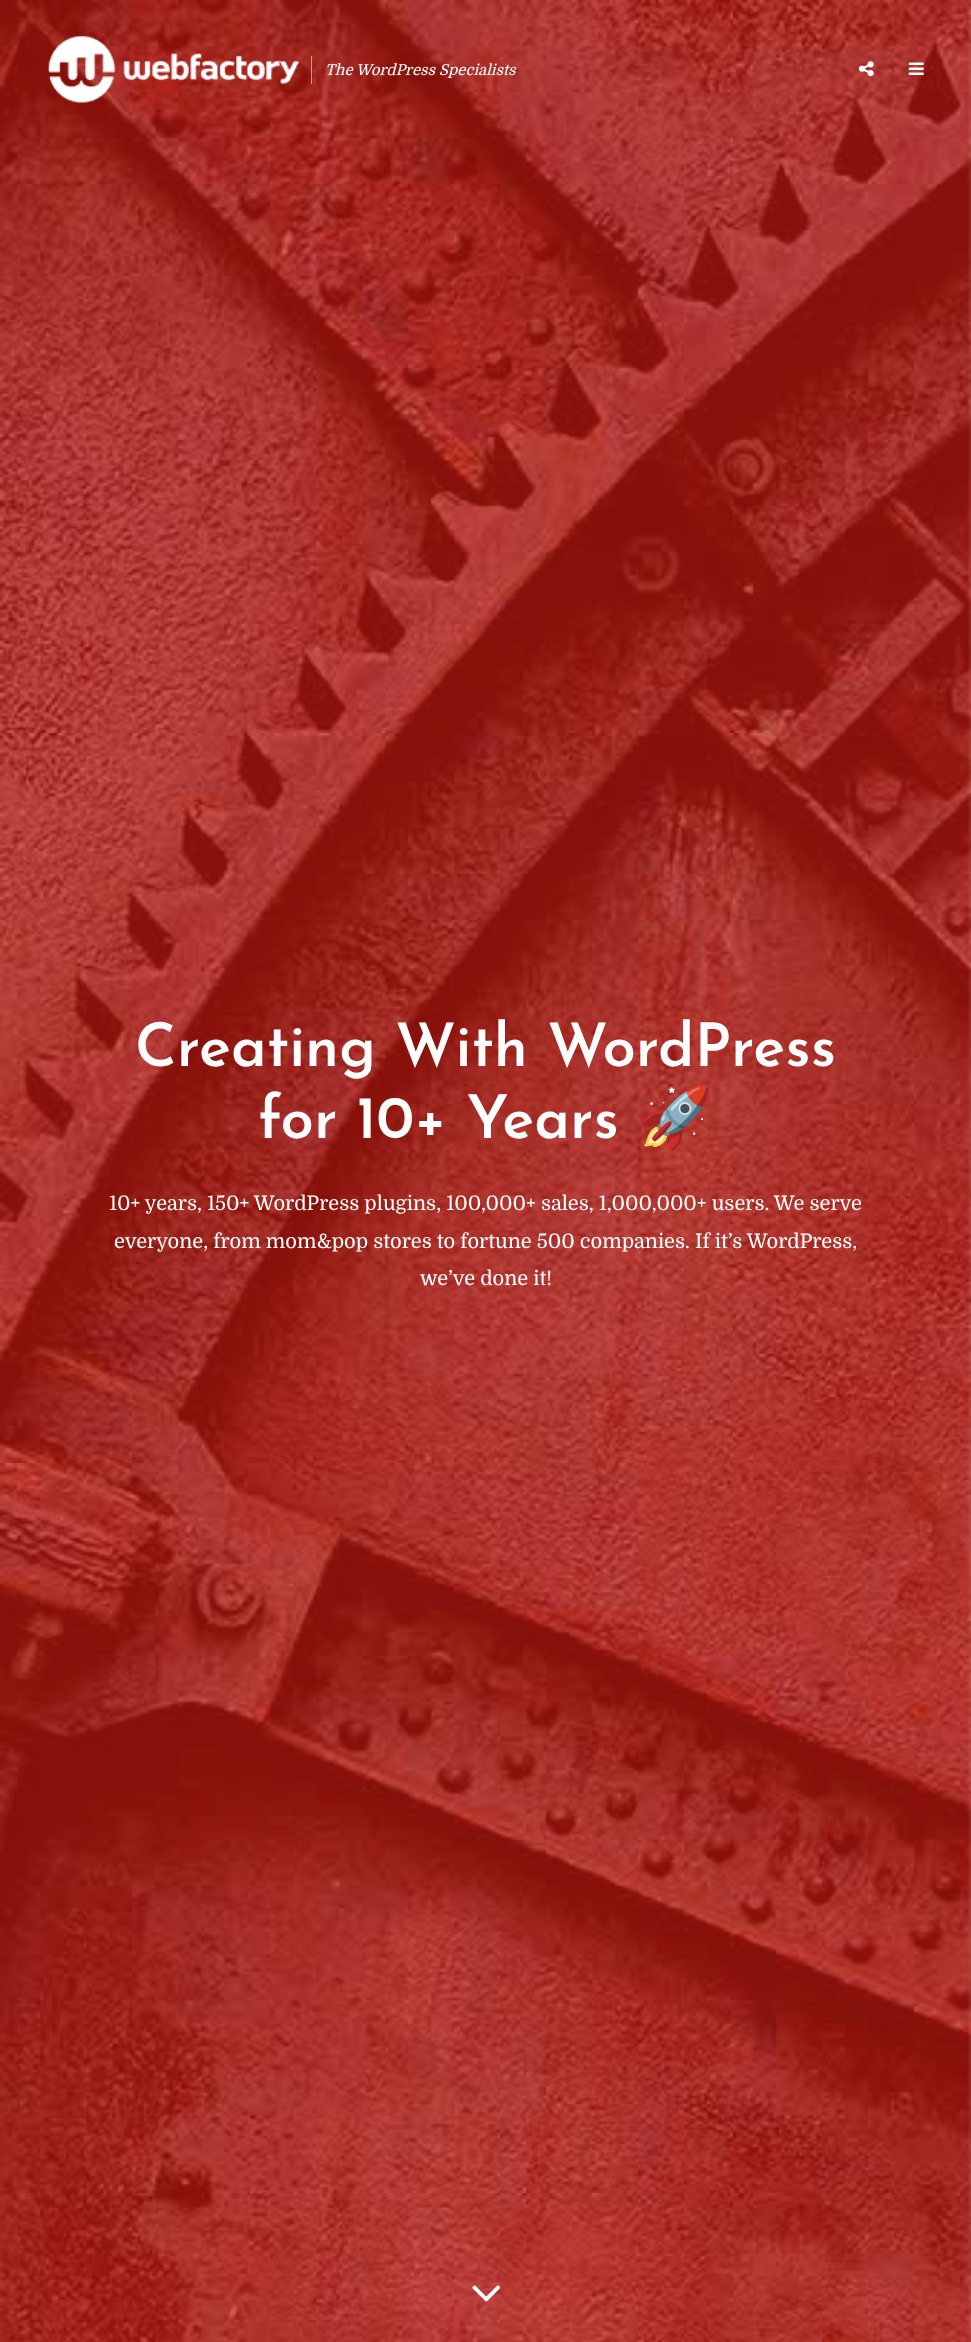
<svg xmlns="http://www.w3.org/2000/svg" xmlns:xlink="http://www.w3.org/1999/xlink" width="971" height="2342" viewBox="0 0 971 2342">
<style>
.cls-1{font:italic 15px Domine;fill:#fefefe}
.cls-2{font:600 60px Josefin Sans;fill:#fefefe}
.cls-3{font:bold 60px Noto Color Emoji;fill:#fefefe}
.cls-4{font:20px Domine;fill:#fefefe}
</style>
<rect width="100%" height="100%" fill="#ffffff"/>
<image xlink:href="image3.png" x="0" y="0" width="971" height="2342"/>
<image xlink:href="image0.png" x="48" y="36" width="251" height="67"/>
<rect fill="#ffffff" fill-opacity="0.5" x="311" y="56" width="1" height="28"/>
<image xlink:href="image1.png" x="858" y="61" width="16" height="16"/>
<image xlink:href="image2.png" x="908" y="62" width="16" height="13"/>
<image xlink:href="image4.png" x="472" y="2285" width="29" height="17"/>
<text class="cls-1" x="325" y="75">The WordPress Specialists</text>
<text class="cls-2" x="135" y="1066">Creating With WordPress</text>
<text class="cls-2" x="258" y="1138">for 10+ Years</text>
<text class="cls-3" x="638" y="1138">🚀</text>
<text class="cls-4" x="109" y="1210">10+ years, 150+ WordPress plugins, 100,000+ sales, 1,000,000+ users. We serve</text>
<text class="cls-4" x="114" y="1248">everyone, from mom&amp;pop stores to fortune 500 companies. If it’s WordPress,</text>
<text class="cls-4" x="420" y="1285">we’ve done it!</text>
</svg>
